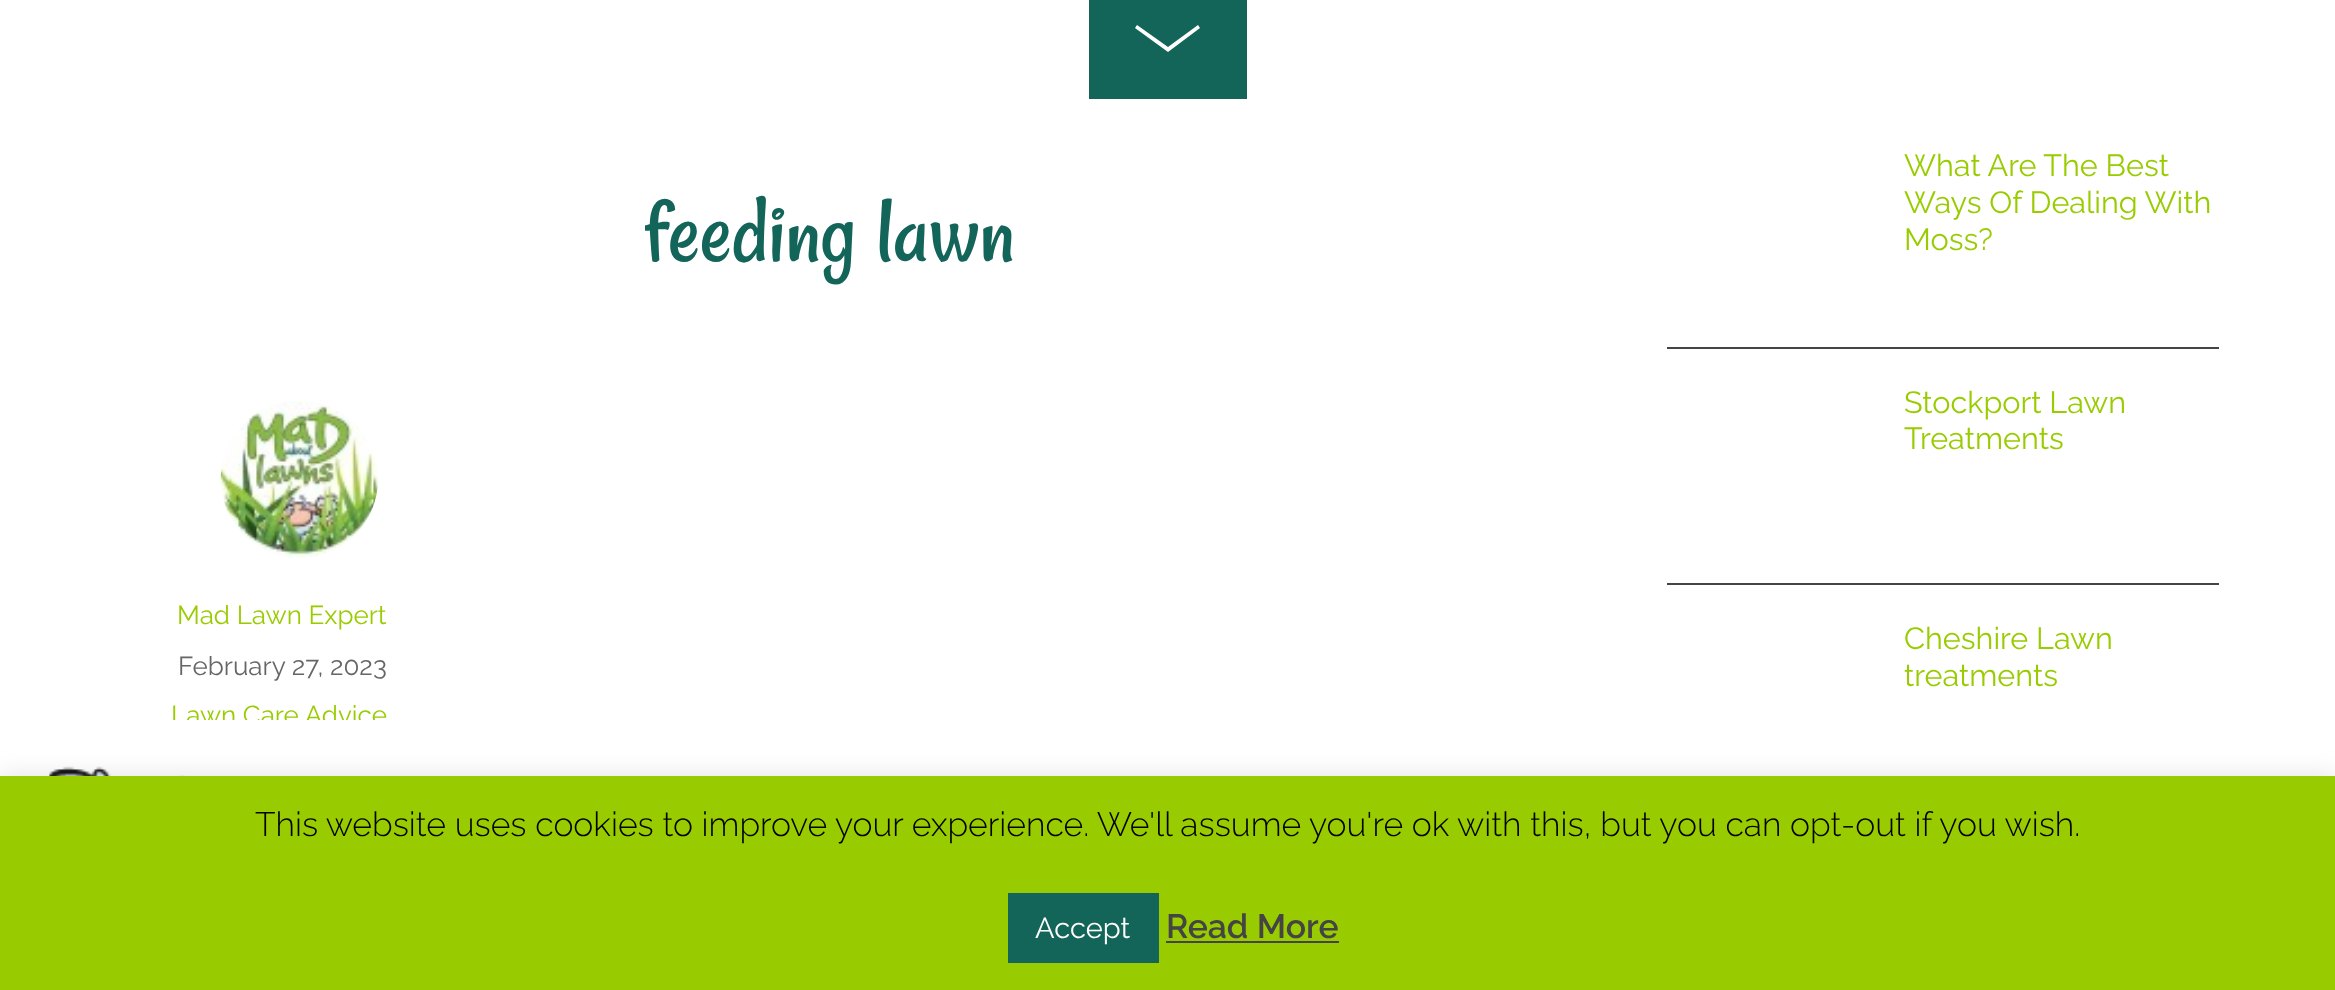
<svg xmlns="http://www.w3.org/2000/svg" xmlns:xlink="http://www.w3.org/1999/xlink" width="2335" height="990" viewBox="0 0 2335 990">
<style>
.cls-1{font:98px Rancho;fill:#13655a}
.cls-2{font:26px Raleway;fill:#99cc00}
.cls-3{font:26px Raleway;fill:#666666}
.cls-4{font:30.6px Raleway;fill:#99cc00}
.cls-5{font:300 33.75px Raleway;fill:#000000}
.cls-6{font:29px Raleway;fill:#ffffff}
.cls-7{font:600 33.75px Raleway;fill:#444444}
</style>
<rect width="100%" height="100%" fill="#ffffff"/>
<rect fill="#13655a" x="1089" y="0" width="158" height="99"/>
<path fill="#ffffff" d="M1168 52L1135 28L1137 25L1168 47L1198 25L1200 28Z"/>
<image xlink:href="image0.png" x="220" y="401" width="158" height="157"/>
<rect fill="#424446" x="1667" y="347" width="552" height="2"/>
<rect fill="#424446" x="1667" y="583" width="552" height="2"/>
<image xlink:href="image1.png" x="48" y="766" width="137" height="10"/>
<rect fill="#acabab" fill-opacity="0.3" filter="blur(11px)" x="0" y="774" width="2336" height="214"/>
<rect fill="#99cc00" x="0" y="776" width="2335" height="214"/>
<rect fill="#13655a" x="1008" y="893" width="151" height="70"/>
<rect fill="#444444" x="1166" y="941" width="173" height="2"/>
<text class="cls-1" x="644" y="261">feeding lawn</text>
<text class="cls-2" x="177" y="624">Mad Lawn Expert</text>
<text class="cls-3" x="178" y="675">February 27, 2023</text>
<text class="cls-2" x="171" y="724">Lawn Care Advice</text>
<text class="cls-4"><tspan x="1904" y="176">What Are The Best</tspan><tspan x="1904" y="213">Ways Of Dealing With</tspan><tspan x="1904" y="250">Moss?</tspan></text>
<text class="cls-4"><tspan x="1904" y="413">Stockport Lawn</tspan><tspan x="1904" y="449">Treatments</tspan></text>
<text class="cls-4"><tspan x="1904" y="649">Cheshire Lawn</tspan><tspan x="1904" y="686">treatments</tspan></text>
<rect fill="#ffffff" x="173" y="720" width="213" height="5"/>
<text class="cls-5" x="255" y="836">This website uses cookies to improve your experience. We'll assume you're ok with this, but you can opt-out if you wish.</text>
<text class="cls-6" x="1035" y="938">Accept</text>
<text class="cls-7" x="1166" y="938">Read More</text>
</svg>
